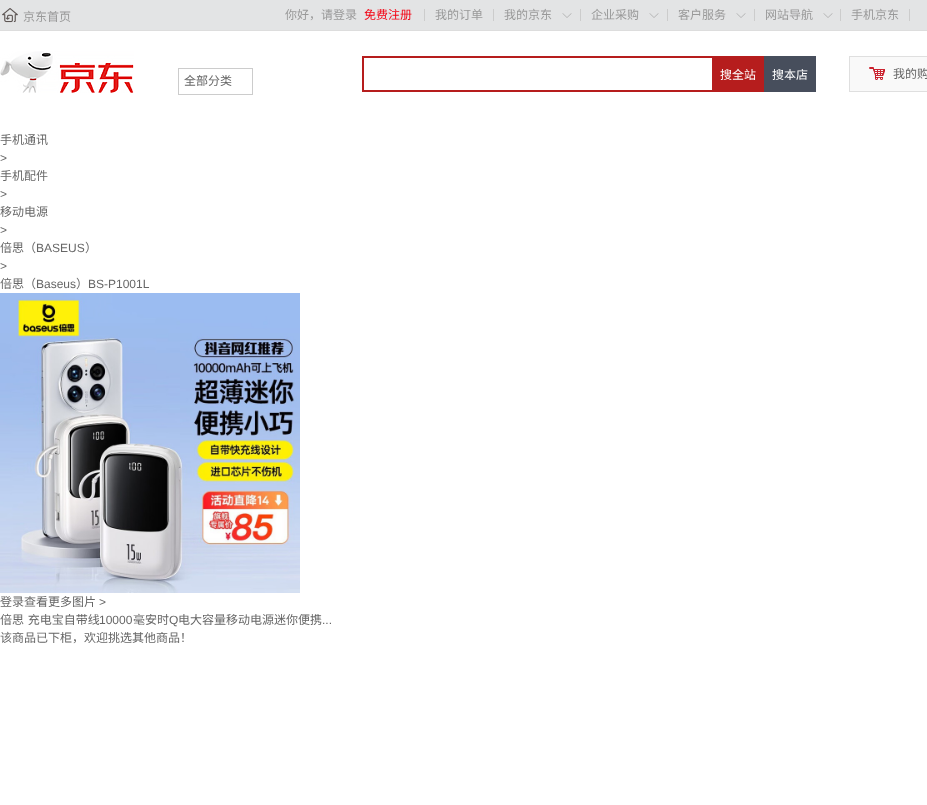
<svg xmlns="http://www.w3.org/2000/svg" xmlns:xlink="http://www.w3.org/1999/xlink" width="927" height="805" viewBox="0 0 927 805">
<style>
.cls-1{font:12px Noto Sans CJK SC;fill:#999999}
.cls-2{font:12px Noto Sans CJK SC;fill:#f30213}
.cls-3{font:12px Noto Sans CJK SC;fill:#666666}
.cls-4{font:12px Noto Sans CJK SC;fill:#ffffff}
.cls-5{font:12px Liberation Sans;fill:#666666}
</style>
<rect width="100%" height="100%" fill="#ffffff"/>
<rect fill="#e3e4e5" x="0" y="0" width="927" height="30"/>
<rect fill="#dddddd" x="0" y="30" width="927" height="1"/>
<image xlink:href="image0.png" x="2" y="8" width="16" height="15"/>
<rect fill="#cccccc" x="424" y="9" width="1" height="12"/>
<rect fill="#cccccc" x="493" y="9" width="1" height="12"/>
<image xlink:href="image1.png" x="562" y="13" width="10" height="5"/>
<rect fill="#cccccc" x="580" y="9" width="1" height="12"/>
<image xlink:href="image1.png" x="649" y="13" width="10" height="5"/>
<rect fill="#cccccc" x="667" y="9" width="1" height="12"/>
<image xlink:href="image1.png" x="736" y="13" width="10" height="5"/>
<rect fill="#cccccc" x="754" y="9" width="1" height="12"/>
<image xlink:href="image1.png" x="823" y="13" width="10" height="5"/>
<rect fill="#cccccc" x="840" y="9" width="1" height="12"/>
<rect fill="#cccccc" x="909" y="9" width="1" height="12"/>
<image xlink:href="image2.png" x="0" y="51" width="134" height="42"/>
<rect fill="none" stroke="#cccccc" x="178.5" y="68.5" width="74" height="26"/>
<rect fill="#b61d1d" x="362" y="56" width="350" height="2"/>
<rect fill="#b61d1d" x="362" y="90" width="350" height="2"/>
<rect fill="#b61d1d" x="362" y="56" width="2" height="36"/>
<rect fill="#b61d1d" x="712" y="56" width="52" height="36"/>
<rect fill="#474e5c" x="764" y="56" width="52" height="36"/>
<rect fill="#f9f9f9" stroke="#dfdfdf" x="849.5" y="56.5" width="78" height="35"/>
<image xlink:href="image3.png" x="869" y="67" width="16" height="13"/>
<image xlink:href="image4.png" x="0" y="293" width="300" height="300"/>
<text class="cls-1" x="23" y="21">京东首页</text>
<text class="cls-1" x="285" y="19">你好，请登录</text>
<text class="cls-2" x="364" y="19">免费注册</text>
<text class="cls-1" x="435" y="19">我的订单</text>
<text class="cls-1" x="504" y="19">我的京东</text>
<text class="cls-1" x="591" y="19">企业采购</text>
<text class="cls-1" x="678" y="19">客户服务</text>
<text class="cls-1" x="765" y="19">网站导航</text>
<text class="cls-1" x="851" y="19">手机京东</text>
<text class="cls-3" x="184" y="85">全部分类</text>
<text class="cls-4" x="720" y="79">搜全站</text>
<text class="cls-4" x="772" y="79">搜本店</text>
<text class="cls-3" x="893" y="78">我的购</text>
<text class="cls-3" x="0" y="144">手机通讯</text>
<text class="cls-5" x="0" y="162">&gt;</text>
<text class="cls-3" x="0" y="180">手机配件</text>
<text class="cls-5" x="0" y="198">&gt;</text>
<text class="cls-3" x="0" y="216">移动电源</text>
<text class="cls-5" x="0" y="234">&gt;</text>
<text class="cls-3" x="0" y="252">倍思（</text>
<text class="cls-5" x="36" y="252">BASEUS</text>
<text class="cls-3" x="85" y="252">）</text>
<text class="cls-5" x="0" y="270">&gt;</text>
<text class="cls-3" x="0" y="288">倍思（</text>
<text class="cls-5" x="36" y="288">Baseus</text>
<text class="cls-3" x="76" y="288">）</text>
<text class="cls-5" x="88" y="288">BS-P1001L</text>
<text class="cls-3" x="0" y="606">登录查看更多图片</text>
<text class="cls-5" x="99" y="606">&gt;</text>
<text class="cls-3" x="0" y="624" word-spacing="1">倍思 充电宝自带线</text>
<text class="cls-5" x="99" y="624">10000</text>
<text class="cls-3" x="133" y="624">毫安时</text>
<text class="cls-5" x="169" y="624">Q</text>
<text class="cls-3" x="178" y="624">电大容量移动电源迷你便携</text>
<text class="cls-5" x="322" y="624">...</text>
<text class="cls-3" x="0" y="642">该商品已下柜，欢迎挑选其他商品！</text>
</svg>
